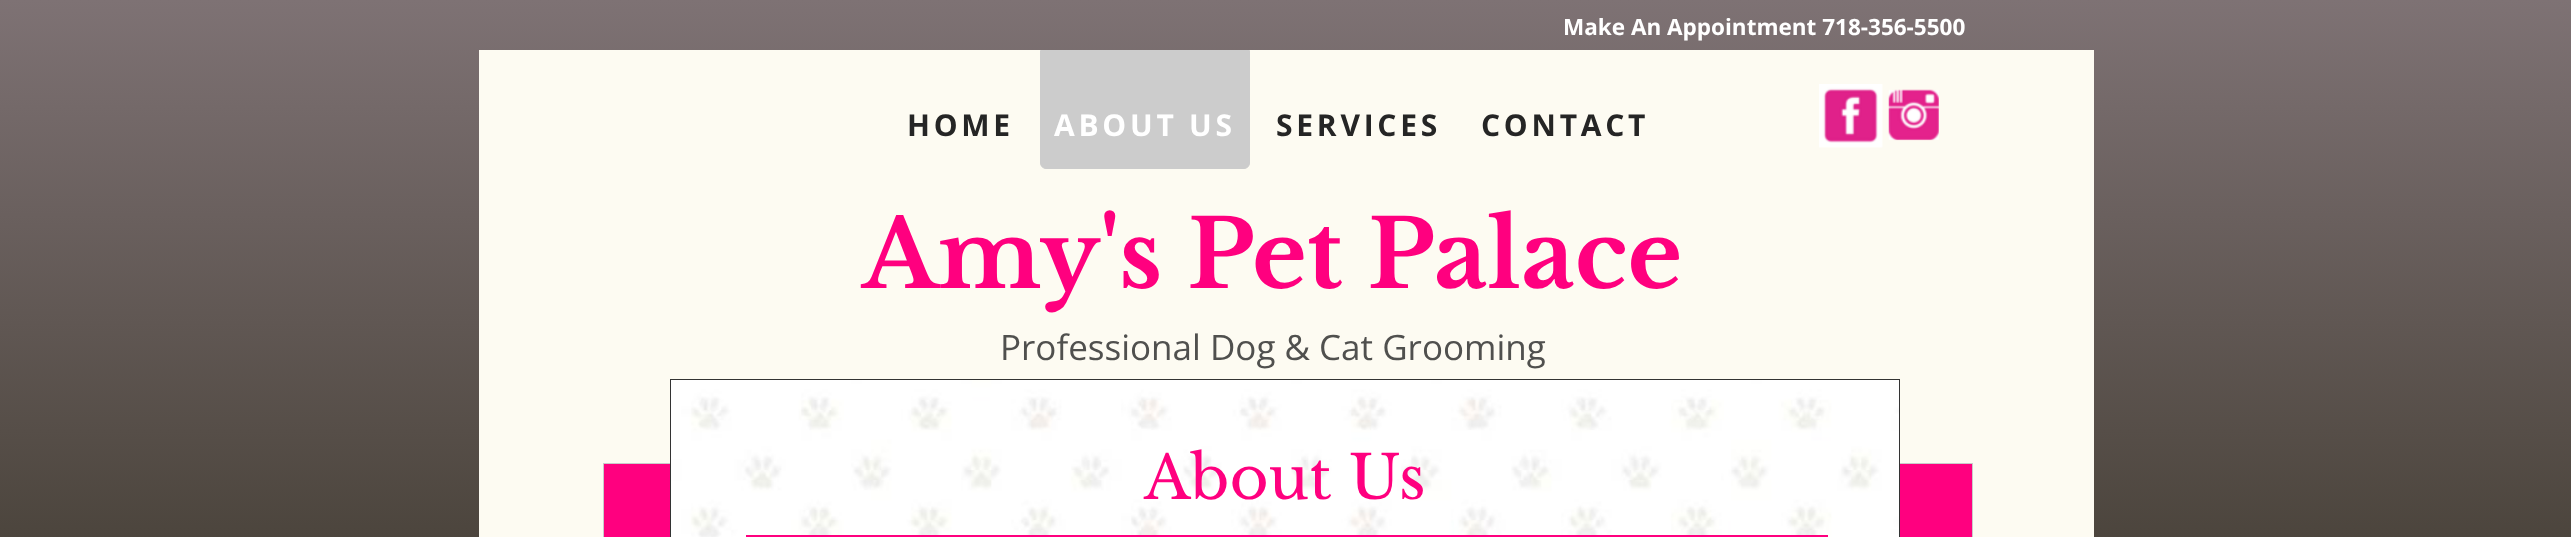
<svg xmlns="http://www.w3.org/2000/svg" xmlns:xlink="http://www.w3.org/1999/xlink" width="2571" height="537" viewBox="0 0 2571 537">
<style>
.cls-1{font:bold 22.5px Open Sans;fill:#ffffff}
.cls-2{font:bold 30px Open Sans;letter-spacing:3.75px;fill:#252525}
.cls-3{font:bold 30px Open Sans;letter-spacing:3.75px;fill:#ffffff}
.cls-4{font:bold 93.75px Libre Baskerville;fill:#ff007f}
.cls-5{font:35px Open Sans;fill:#50504e}
.cls-6{font:60px Libre Baskerville;fill:#ff007f}
</style>
<defs>
<linearGradient id="g1" gradientUnits="userSpaceOnUse" x1="1286" y1="0" x2="1286" y2="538"><stop offset="0" stop-color="#7e7274"/><stop offset="1" stop-color="#4c453d"/></linearGradient>
</defs>
<rect width="100%" height="100%" fill="#ffffff"/>
<rect fill="url(#g1)" x="0" y="0" width="2571" height="537"/>
<rect fill="#fdfbf2" x="479" y="50" width="1615" height="487"/>
<path fill="#cccccc" stroke="#cccccc" d="M1040.5 50.5H1249.5V163C1249.5 166 1247 168.5 1244 168.5H1046C1043 168.5 1040.5 166 1040.5 163Z"/>
<image xlink:href="image0.png" x="1819" y="84" width="64" height="64"/>
<image xlink:href="image1.png" x="1888" y="89" width="51" height="52"/>
<rect fill="#ff007f" stroke="#cacaca" x="603.5" y="463.5" width="1369" height="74"/>
<rect fill="none" stroke="#333333" x="670.5" y="379.5" width="1229" height="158"/>
<image xlink:href="image2.png" x="671" y="380" width="1228" height="157"/>
<rect fill="#ff007f" x="746" y="535" width="1082" height="2"/>
<text class="cls-1" x="1563" y="35">Make An Appointment 718-356-5500</text>
<text class="cls-2" x="907" y="136">HOME</text>
<text class="cls-3" x="1054" y="136">ABOUT US</text>
<text class="cls-2" x="1276" y="136">SERVICES</text>
<text class="cls-2" x="1481" y="136">CONTACT</text>
<text class="cls-4" x="862" y="288">Amy's Pet Palace</text>
<text class="cls-5" x="1000" y="360">Professional Dog &amp; Cat Grooming</text>
<text class="cls-6" x="1144" y="499">About Us</text>
</svg>
